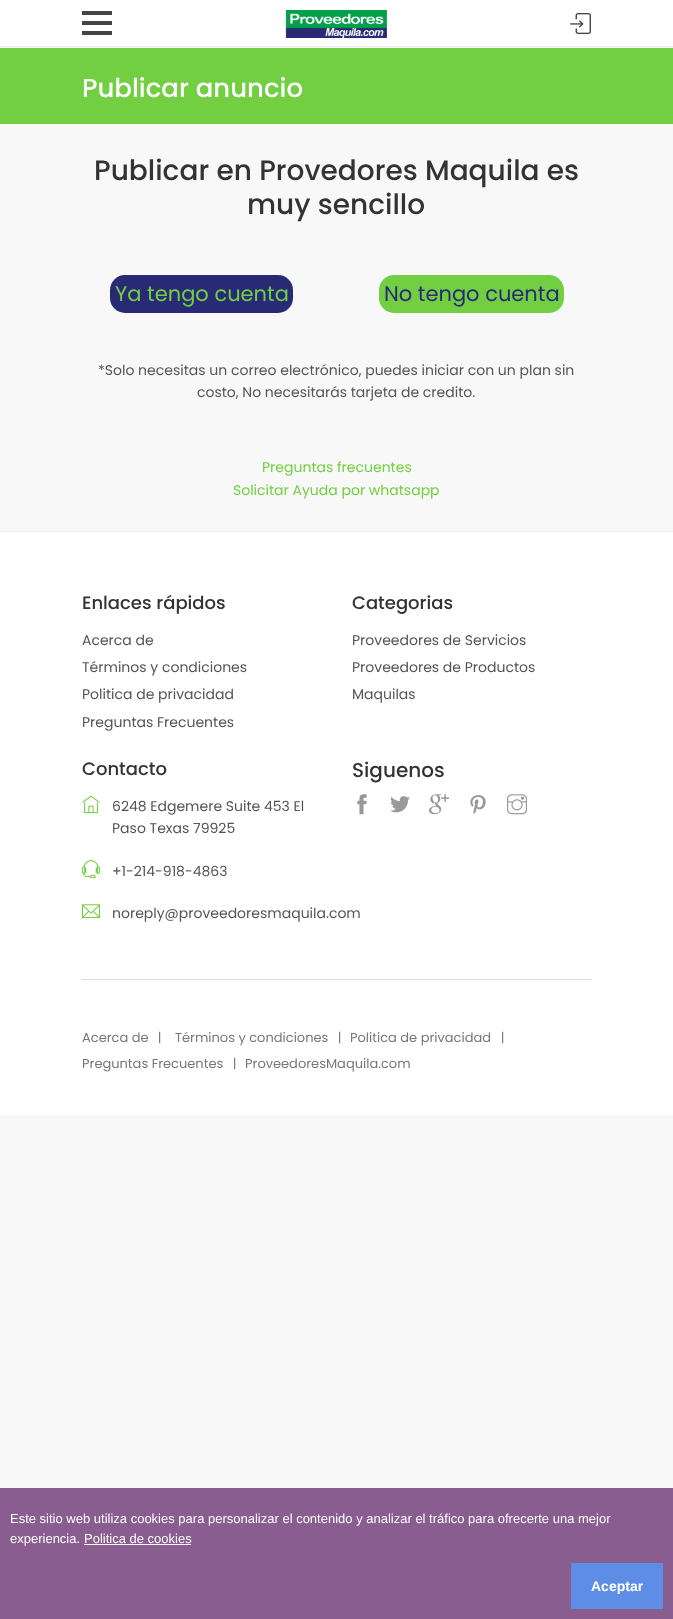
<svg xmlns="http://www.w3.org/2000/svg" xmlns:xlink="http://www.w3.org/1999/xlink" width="673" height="1619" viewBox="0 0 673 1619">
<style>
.cls-1{font:500 26px Poppins;fill:#ffffff}
.cls-2{font:500 28px Poppins;fill:#333333}
.cls-3{font:21px Poppins;fill:#73cf42}
.cls-4{font:21px Poppins;fill:#282a75}
.cls-5{font:14px Poppins;fill:#555555}
.cls-6{font:14px Poppins;fill:#73cf42}
.cls-7{font:500 18px Poppins;fill:#333333}
.cls-8{font:500 20px Poppins;fill:#333333}
.cls-9{font:13px Poppins;fill:#777777}
.cls-10{font:300 13px Poppins;fill:#555555}
.cls-11{font:13px Liberation Sans;fill:#ffffff}
.cls-12{font:bold 14px Liberation Sans;fill:#ffffff}
</style>
<rect width="100%" height="100%" fill="#f8f8f8"/>
<rect fill="#ffffff" x="0" y="0" width="673" height="46"/>
<rect fill="#ededed" x="0" y="46" width="673" height="1"/>
<image xlink:href="image0.png" x="285" y="10" width="102" height="28"/>
<rect fill="#444444" x="82" y="21" width="30" height="4"/>
<rect fill="#444444" x="82" y="11" width="30" height="4"/>
<rect fill="#444444" x="82" y="31" width="30" height="4"/>
<image xlink:href="image1.png" x="570" y="13" width="21" height="21"/>
<rect fill="#73cf42" x="0" y="48" width="673" height="76"/>
<rect fill="#282a75" x="110" y="275" width="183" height="38" rx="15"/>
<rect fill="#73cf42" x="379" y="275" width="185" height="38" rx="15"/>
<rect fill="#ffffff" x="0" y="532" width="673" height="583"/>
<rect fill="#ededed" x="0" y="531" width="673" height="1"/>
<image xlink:href="image2.png" x="82" y="795" width="18" height="19"/>
<image xlink:href="image3.png" x="82" y="860" width="18" height="19"/>
<image xlink:href="image4.png" x="82" y="904" width="18" height="14"/>
<image xlink:href="image5.png" x="357" y="794" width="10" height="21"/>
<image xlink:href="image6.png" x="390" y="796" width="20" height="17"/>
<image xlink:href="image7.png" x="429" y="794" width="20" height="21"/>
<image xlink:href="image8.png" x="470" y="795" width="16" height="19"/>
<image xlink:href="image9.png" x="507" y="794" width="20" height="21"/>
<rect fill="#dddddd" x="82" y="979" width="510" height="1"/>
<rect fill="#895d90" x="0" y="1488" width="673" height="131"/>
<rect fill="#fbfbfb" x="84" y="1544" width="107" height="1"/>
<rect fill="#5e8de6" x="571" y="1563" width="92" height="46"/>
<text class="cls-1" x="82" y="97">Publicar anuncio</text>
<text class="cls-2" x="94" y="180">Publicar en Provedores Maquila es</text>
<text class="cls-2" x="247" y="214">muy sencillo</text>
<text class="cls-3" x="115" y="301">Ya tengo cuenta</text>
<text class="cls-4" x="384" y="301">No tengo cuenta</text>
<text class="cls-5" x="98" y="375">*Solo necesitas un correo electrónico, puedes iniciar con un plan sin</text>
<text class="cls-5" x="197" y="397">costo, No necesitarás tarjeta de credito.</text>
<text class="cls-6" x="262" y="472">Preguntas frecuentes</text>
<text class="cls-6" x="233" y="495">Solicitar Ayuda por whatsapp</text>
<text class="cls-7" x="82" y="609">Enlaces rápidos</text>
<text class="cls-5"><tspan x="82" y="645">Acerca de</tspan><tspan x="82" y="672">Términos y condiciones</tspan><tspan x="82" y="699">Politica de privacidad</tspan></text>
<text class="cls-5" x="82" y="727">Preguntas Frecuentes</text>
<text class="cls-7" x="352" y="609">Categorias</text>
<text class="cls-5"><tspan x="352" y="645">Proveedores de Servicios</tspan><tspan x="352" y="672">Proveedores de Productos</tspan><tspan x="352" y="699">Maquilas</tspan></text>
<text class="cls-7" x="82" y="775">Contacto</text>
<text class="cls-5"><tspan x="112" y="811">6248 Edgemere Suite 453 El</tspan><tspan x="112" y="833">Paso Texas 79925</tspan></text>
<text class="cls-5" x="112" y="876">+1-214-918-4863</text>
<text class="cls-5" x="112" y="918">noreply@proveedoresmaquila.com</text>
<text class="cls-8" x="352" y="777">Siguenos</text>
<text class="cls-9" x="82" y="1042">Acerca de</text>
<text class="cls-10" x="158" y="1042">|</text>
<text class="cls-9" x="175" y="1042">Términos y condiciones</text>
<text class="cls-10" x="338" y="1042">|</text>
<text class="cls-9" x="350" y="1042">Politica de privacidad</text>
<text class="cls-10" x="501" y="1042">|</text>
<text class="cls-9" x="82" y="1068">Preguntas Frecuentes</text>
<text class="cls-10" x="233" y="1068">|</text>
<text class="cls-9" x="245" y="1068">ProveedoresMaquila.com</text>
<text class="cls-11"><tspan x="10" y="1523">Este sitio web utiliza cookies para personalizar el contenido y analizar el tráfico para ofrecerte una mejor</tspan><tspan x="10" y="1543">experiencia.</tspan></text>
<text class="cls-11" x="84" y="1543">Politica de cookies</text>
<text class="cls-12" x="591" y="1591">Aceptar</text>
</svg>
